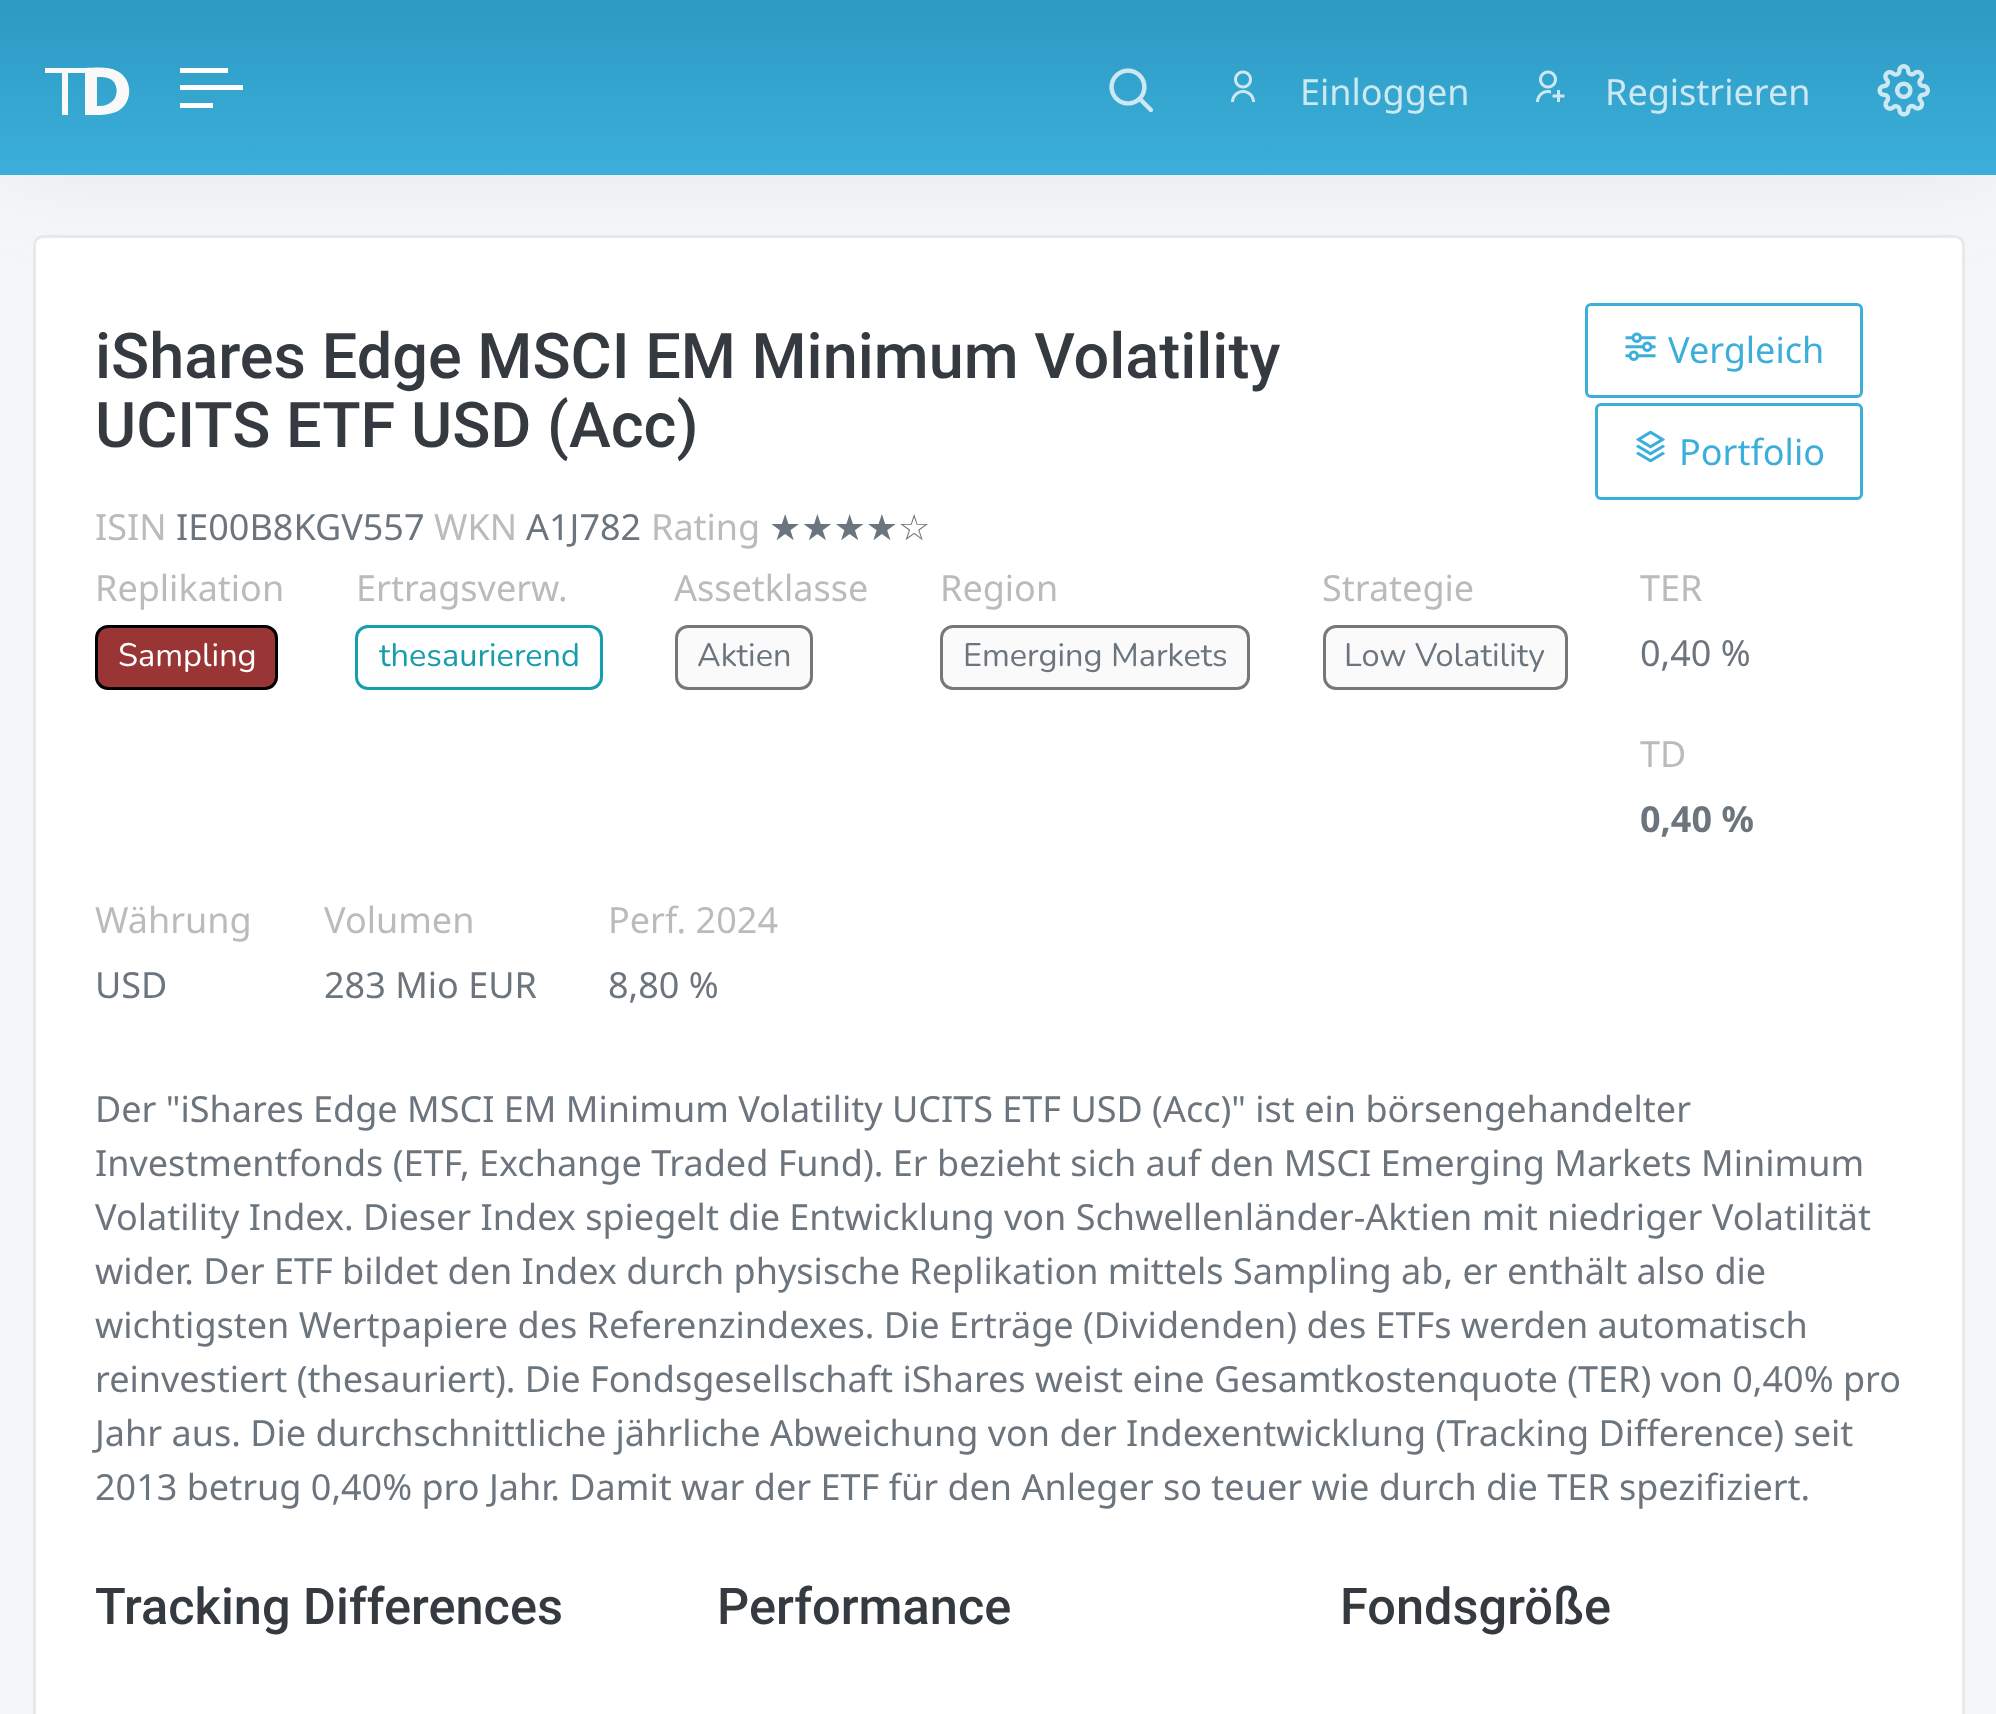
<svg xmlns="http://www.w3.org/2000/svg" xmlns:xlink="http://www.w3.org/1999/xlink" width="1996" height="1714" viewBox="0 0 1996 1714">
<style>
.cls-1{font:36px Noto Sans;fill:#cce9f3}
.cls-2{font:500 63px Roboto;fill:#343a40}
.cls-3{font:36px Noto Sans;fill:#3bafda}
.cls-4{font:36px Noto Sans;fill:#bbbbbb}
.cls-5{font:36px Noto Sans;fill:#6c757d}
.cls-6{font:36px DejaVu Sans;fill:#6c757d}
.cls-7{font:32.5px Nunito;fill:#ffffff}
.cls-8{font:32.5px Nunito;fill:#179eaa}
.cls-9{font:32.5px Nunito;fill:#6c757d}
.cls-10{font:bold 36px Noto Sans;fill:#6c757d}
.cls-11{font:500 50.5px Roboto;fill:#343a40}
</style>
<defs>
<linearGradient id="g1" gradientUnits="userSpaceOnUse" x1="999" y1="175" x2="999" y2="0"><stop offset="0" stop-color="#3bafda"/><stop offset="1" stop-color="#2c9ac3"/></linearGradient>
</defs>
<rect width="100%" height="100%" fill="#f5f6f8"/>
<rect fill="#ffffff" stroke="#e7eaed" stroke-width="3" x="34.5" y="236.5" width="1929" height="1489" rx="8.5"/>
<rect fill="none" stroke="#3bafda" stroke-width="3" x="1586.5" y="304.5" width="275" height="92" rx="4.5"/>
<rect fill="#9aa1ab" fill-opacity="0.15" filter="blur(44px)" x="0" y="0" width="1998" height="175"/>
<rect fill="url(#g1)" x="0" y="0" width="1996" height="175"/>
<path fill="#f9f9f9" d="M45 68H85V73H68V115H62V73H45Z"/>
<path fill="#f9f9f9" d="M97 77V106C101 106 106 106 110 103C118 99 119 86 112 80C109 78 105 77 101 77ZM85 68C95 68 108 66 117 71C134 79 133 105 116 112C106 116 95 115 85 115Z"/>
<rect fill="#ffffff" x="180" y="68" width="48" height="5"/>
<rect fill="#ffffff" x="180" y="85" width="63" height="5"/>
<rect fill="#ffffff" x="180" y="103" width="33" height="5"/>
<image xlink:href="image0.png" x="1109" y="68" width="45" height="45"/>
<image xlink:href="image1.png" x="1231" y="70" width="24" height="32"/>
<image xlink:href="image2.png" x="1536" y="70" width="29" height="32"/>
<image xlink:href="image3.png" x="1877" y="64" width="53" height="53"/>
<image xlink:href="image4.png" x="1625" y="332" width="31" height="29"/>
<rect fill="none" stroke="#3bafda" stroke-width="3" x="1596.5" y="404.5" width="265" height="94" rx="4.5"/>
<image xlink:href="image5.png" x="1636" y="430" width="29" height="33"/>
<rect fill="#993535" stroke="#000000" stroke-width="3" x="96.5" y="626.5" width="180" height="62" rx="11.5"/>
<rect fill="none" stroke="#179eaa" stroke-width="3" x="356.5" y="626.5" width="245" height="62" rx="11.5"/>
<rect fill="#fafafa" stroke="#777777" stroke-width="3" x="676.5" y="626.5" width="135" height="62" rx="11.5"/>
<rect fill="#fafafa" stroke="#777777" stroke-width="3" x="941.5" y="626.5" width="307" height="62" rx="11.5"/>
<rect fill="#fafafa" stroke="#777777" stroke-width="3" x="1324.5" y="626.5" width="242" height="62" rx="11.5"/>
<text class="cls-1" x="1300" y="105">Einloggen</text>
<text class="cls-1" x="1605" y="105">Registrieren</text>
<text class="cls-2"><tspan x="95" y="378">iShares Edge MSCI EM Minimum Volatility</tspan><tspan x="95" y="447">UCITS ETF USD (Acc)</tspan></text>
<text class="cls-3" x="1668" y="363">Vergleich</text>
<text class="cls-3" x="1679" y="465">Portfolio</text>
<text class="cls-4" x="95" y="540">ISIN</text>
<text class="cls-5" x="176" y="540">IE00B8KGV557</text>
<text class="cls-4" x="434" y="540">WKN</text>
<text class="cls-5" x="526" y="540">A1J782</text>
<text class="cls-4" x="651" y="540">Rating</text>
<text class="cls-6" x="769" y="540">★★★★☆</text>
<text class="cls-4" x="95" y="601">Replikation</text>
<text class="cls-7" x="118" y="666">Sampling</text>
<text class="cls-4" x="356" y="601">Ertragsverw.</text>
<text class="cls-8" x="379" y="666">thesaurierend</text>
<text class="cls-4" x="674" y="601">Assetklasse</text>
<text class="cls-9" x="697" y="666">Aktien</text>
<text class="cls-4" x="940" y="601">Region</text>
<text class="cls-9" x="963" y="666">Emerging Markets</text>
<text class="cls-4" x="1322" y="601">Strategie</text>
<text class="cls-9" x="1344" y="666">Low Volatility</text>
<text class="cls-4" x="1640" y="601">TER</text>
<text class="cls-5" x="1640" y="666">0,40 %</text>
<text class="cls-4" x="1640" y="767">TD</text>
<text class="cls-10" x="1640" y="832">0,40 %</text>
<text class="cls-4" x="95" y="933">Währung</text>
<text class="cls-5" x="95" y="998">USD</text>
<text class="cls-4" x="324" y="933">Volumen</text>
<text class="cls-5" x="324" y="998">283 Mio EUR</text>
<text class="cls-4" x="608" y="933">Perf. 2024</text>
<text class="cls-5" x="608" y="998">8,80 %</text>
<text class="cls-5"><tspan x="95" y="1122">Der "iShares Edge MSCI EM Minimum Volatility UCITS ETF USD (Acc)" ist ein börsengehandelter</tspan><tspan x="95" y="1176">Investmentfonds (ETF, Exchange Traded Fund). Er bezieht sich auf den MSCI Emerging Markets Minimum</tspan><tspan x="95" y="1230">Volatility Index. Dieser Index spiegelt die Entwicklung von Schwellenländer-Aktien mit niedriger Volatilität</tspan><tspan x="95" y="1284">wider. Der ETF bildet den Index durch physische Replikation mittels Sampling ab, er enthält also die</tspan><tspan x="95" y="1338">wichtigsten Wertpapiere des Referenzindexes. Die Erträge (Dividenden) des ETFs werden automatisch</tspan><tspan x="95" y="1392">reinvestiert (thesauriert). Die Fondsgesellschaft iShares weist eine Gesamtkostenquote (TER) von 0,40% pro</tspan><tspan x="95" y="1446">Jahr aus. Die durchschnittliche jährliche Abweichung von der Indexentwicklung (Tracking Difference) seit</tspan><tspan x="95" y="1500">2013 betrug 0,40% pro Jahr. Damit war der ETF für den Anleger so teuer wie durch die TER spezifiziert.</tspan></text>
<text class="cls-11" x="95" y="1624">Tracking Differences</text>
<text class="cls-11" x="717" y="1624">Performance</text>
<text class="cls-11" x="1340" y="1624">Fondsgröße</text>
</svg>
